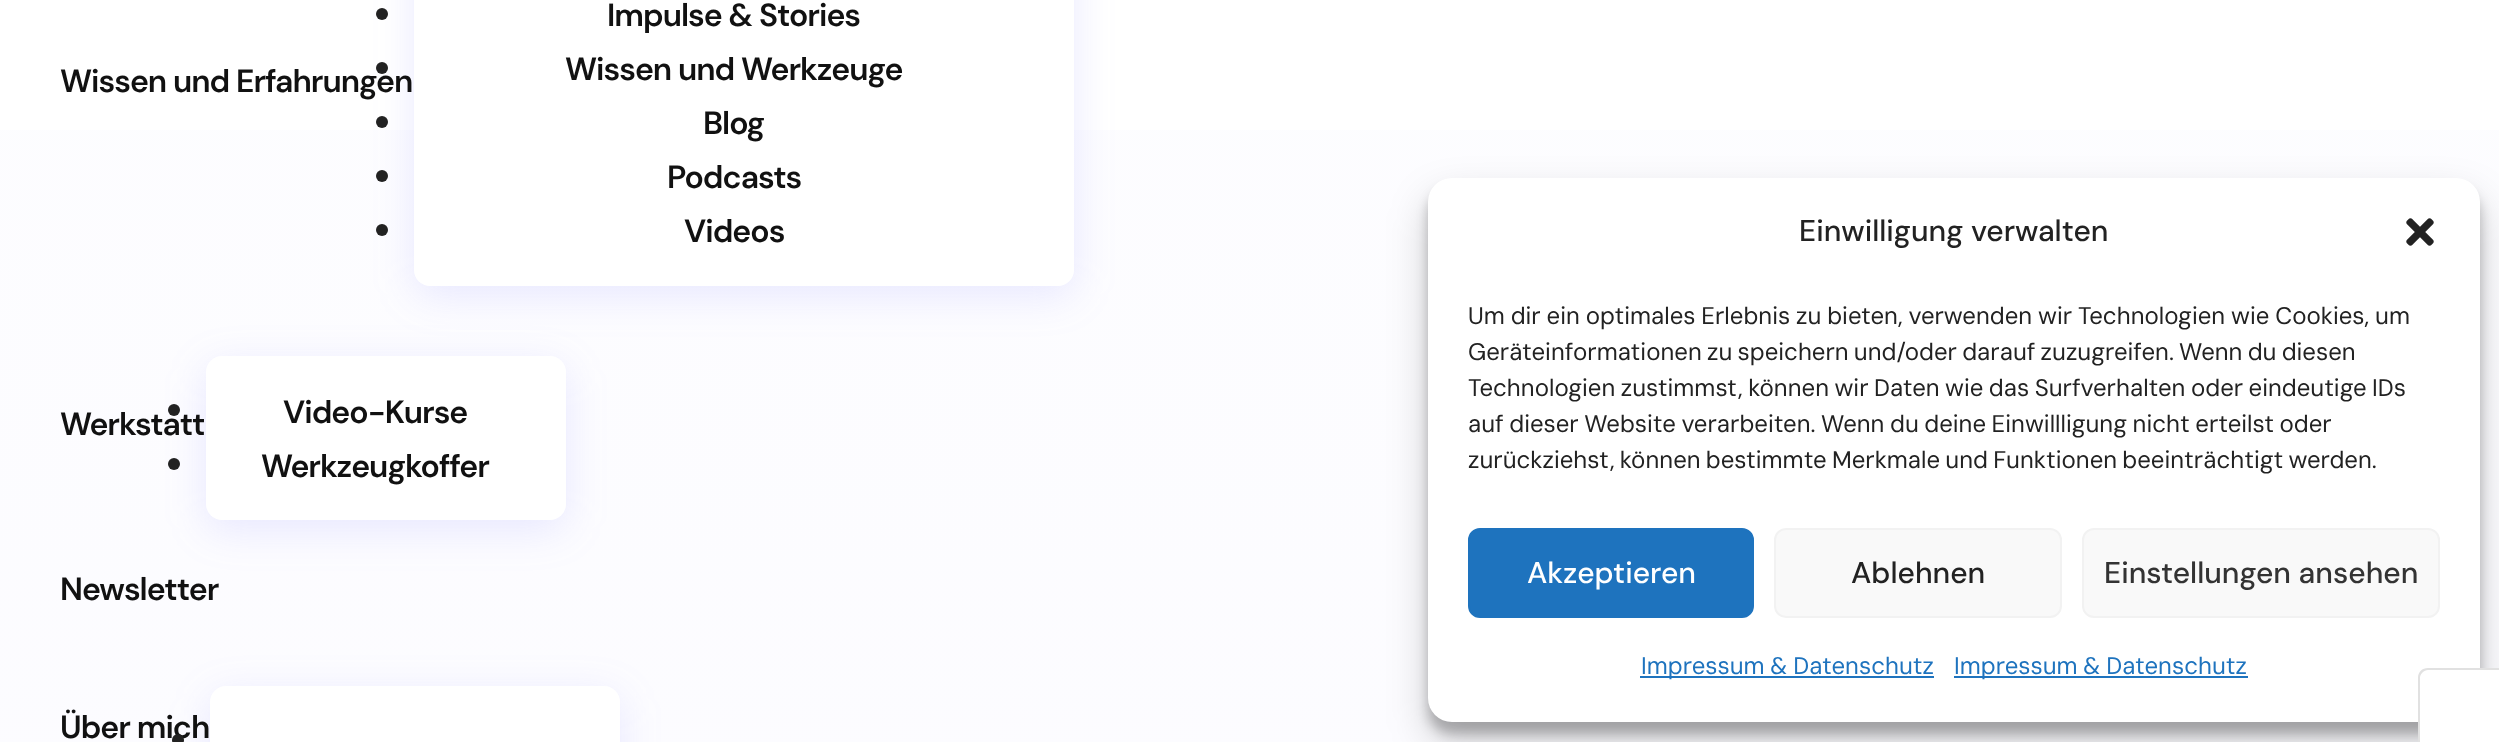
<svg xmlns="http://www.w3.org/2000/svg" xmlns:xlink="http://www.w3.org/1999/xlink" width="2499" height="742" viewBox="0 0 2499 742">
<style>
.cls-1{font:600 32px DM Sans;letter-spacing:-1px;fill:#111111}
.cls-2{font:500 30px DM Sans;fill:#222222}
.cls-3{font:24px DM Sans;fill:#222222}
.cls-4{font:500 30px DM Sans;fill:#ffffff}
.cls-5{font:500 30px DM Sans;fill:#333333}
.cls-6{font:24px DM Sans;fill:#1e73be}
</style>
<defs>
<linearGradient id="g1" gradientUnits="userSpaceOnUse" x1="1250" y1="-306" x2="1250" y2="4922"><stop offset="0" stop-color="#fdfdff"/><stop offset="1" stop-color="#f8f7ff"/></linearGradient>
</defs>
<rect width="100%" height="100%" fill="#ffffff"/>
<rect fill="url(#g1)" x="0" y="130" width="2499" height="612"/>
<rect fill="#7272ff" fill-opacity="0.15" filter="blur(20px)" x="414" y="-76" width="660" height="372" rx="16"/>
<rect fill="#ffffff" x="414" y="-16" width="660" height="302" rx="16"/>
<circle fill="#222222" cx="382" cy="14" r="6"/>
<circle fill="#222222" cx="382" cy="122" r="6"/>
<circle fill="#222222" cx="382" cy="176" r="6"/>
<circle fill="#222222" cx="382" cy="230" r="6"/>
<rect fill="#7272ff" fill-opacity="0.15" filter="blur(20px)" x="206" y="366" width="360" height="164" rx="16"/>
<rect fill="#ffffff" x="206" y="356" width="360" height="164" rx="16"/>
<circle fill="#222222" cx="174" cy="464" r="6"/>
<rect fill="#7272ff" fill-opacity="0.15" filter="blur(20px)" x="210" y="696" width="410" height="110" rx="16"/>
<rect fill="#ffffff" x="210" y="686" width="410" height="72" rx="16"/>
<rect fill="#000000" fill-opacity="0.23" filter="blur(6px)" x="1428" y="190" width="1052" height="544" rx="24"/>
<rect fill="#000000" fill-opacity="0.19" filter="blur(20px)" x="1428" y="198" width="1052" height="544" rx="24"/>
<rect fill="#ffffff" x="1428" y="178" width="1052" height="544" rx="24"/>
<image xlink:href="image0.png" x="2406" y="218" width="28" height="28"/>
<rect fill="#1e73be" stroke="#1e73be" stroke-width="2" x="1469" y="529" width="284" height="88" rx="11"/>
<rect fill="#f9f9f9" stroke="#f2f2f2" stroke-width="2" x="1775" y="529" width="286" height="88" rx="11"/>
<rect fill="#f9f9f9" stroke="#f2f2f2" stroke-width="2" x="2083" y="529" width="356" height="88" rx="11"/>
<rect fill="#1e73be" x="1640" y="676" width="294" height="2"/>
<rect fill="#1e73be" x="1954" y="676" width="294" height="2"/>
<path fill="#ffffff" d="M2428 668H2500V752H2428C2422.5 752 2418 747.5 2418 742V678C2418 672.5 2422.5 668 2428 668Z"/>
<path fill="#e1e1e1" fill-rule="evenodd" d="M2428 668H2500V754H2428C2422 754 2418 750 2418 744V678C2418 672 2422 668 2428 668ZM2428 670H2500V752H2428C2424 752 2420 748 2420 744V678C2420 674 2424 670 2428 670Z"/>
<text class="cls-1" x="60" y="92">Wissen und Erfahrungen</text>
<text class="cls-1" x="607" y="26">Impulse &amp; Stories</text>
<circle fill="#222222" cx="382" cy="68" r="6"/>
<text class="cls-1" x="565" y="80">Wissen und Werkzeuge</text>
<text class="cls-1" x="703" y="134">Blog</text>
<text class="cls-1" x="667" y="188">Podcasts</text>
<text class="cls-1" x="684" y="242">Videos</text>
<text class="cls-1" x="60" y="435">Werkstatt</text>
<circle fill="#222222" cx="174" cy="410" r="6"/>
<text class="cls-1" x="283" y="423">Video-Kurse</text>
<text class="cls-1" x="261" y="477">Werkzeugkoffer</text>
<text class="cls-1" x="60" y="600">Newsletter</text>
<text class="cls-1" x="60" y="738">Über mich</text>
<circle fill="#222222" cx="178" cy="740" r="6"/>
<text class="cls-2" x="1799" y="241">Einwilligung verwalten</text>
<text class="cls-3"><tspan x="1468" y="324" word-spacing="-0.6">Um dir ein optimales Erlebnis zu bieten, verwenden wir Technologien wie Cookies, um</tspan><tspan x="1468" y="360" word-spacing="-1.25">Geräteinformationen zu speichern und/oder darauf zuzugreifen. Wenn du diesen</tspan><tspan x="1468" y="396" word-spacing="-1">Technologien zustimmst, können wir Daten wie das Surfverhalten oder eindeutige IDs</tspan><tspan x="1468" y="432" word-spacing="-0.9">auf dieser Website verarbeiten. Wenn du deine Einwillligung nicht erteilst oder</tspan><tspan x="1468" y="468" word-spacing="-1.25">zurückziehst, können bestimmte Merkmale und Funktionen beeinträchtigt werden.</tspan></text>
<text class="cls-4" x="1527" y="583">Akzeptieren</text>
<text class="cls-2" x="1851" y="583">Ablehnen</text>
<text class="cls-5" x="2104" y="583">Einstellungen ansehen</text>
<text class="cls-6" x="1641" y="674" word-spacing="-1">Impressum &amp; Datenschutz</text>
<text class="cls-6" x="1954" y="674" word-spacing="-1">Impressum &amp; Datenschutz</text>
</svg>
